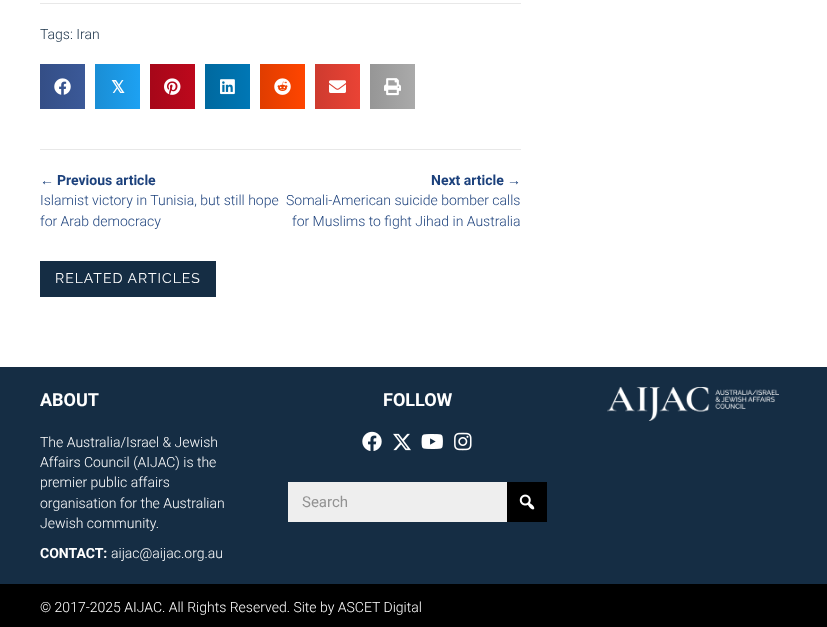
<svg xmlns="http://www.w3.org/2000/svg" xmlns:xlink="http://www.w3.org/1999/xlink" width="827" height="627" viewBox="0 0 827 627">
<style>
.cls-1{font:300 14px Roboto;fill:#152d44}
.cls-2{font:bold 17px DejaVu Sans;fill:#ffffff}
.cls-3{font:bold 14px Liberation Sans;fill:#1c417c}
.cls-4{font:bold 14px Roboto;fill:#1c417c}
.cls-5{font:300 14px Roboto;fill:#1c417c}
.cls-6{font:14px Raleway;letter-spacing:1px;fill:#ffffff}
.cls-7{font:bold 18px Roboto;fill:#ffffff}
.cls-8{font:300 14px Roboto;fill:#ffffff}
.cls-9{font:bold 14px Roboto;fill:#ffffff}
.cls-10{font:15px Roboto;fill:#929292}
</style>
<defs>
<linearGradient id="g1" gradientUnits="userSpaceOnUse" x1="40" y1="87" x2="85" y2="87"><stop offset="0" stop-color="#344e86"/><stop offset="1" stop-color="#3b5998"/></linearGradient>
<linearGradient id="g2" gradientUnits="userSpaceOnUse" x1="95" y1="87" x2="140" y2="87"><stop offset="0" stop-color="#1a8ed5"/><stop offset="1" stop-color="#1da1f2"/></linearGradient>
<linearGradient id="g3" gradientUnits="userSpaceOnUse" x1="150" y1="87" x2="195" y2="87"><stop offset="0" stop-color="#a60719"/><stop offset="1" stop-color="#bd081c"/></linearGradient>
<linearGradient id="g4" gradientUnits="userSpaceOnUse" x1="205" y1="87" x2="250" y2="87"><stop offset="0" stop-color="#00699f"/><stop offset="1" stop-color="#0077b5"/></linearGradient>
<linearGradient id="g5" gradientUnits="userSpaceOnUse" x1="260" y1="87" x2="305" y2="87"><stop offset="0" stop-color="#e03d00"/><stop offset="1" stop-color="#ff4500"/></linearGradient>
<linearGradient id="g6" gradientUnits="userSpaceOnUse" x1="315" y1="87" x2="360" y2="87"><stop offset="0" stop-color="#ce3b2f"/><stop offset="1" stop-color="#ea4335"/></linearGradient>
<linearGradient id="g7" gradientUnits="userSpaceOnUse" x1="370" y1="87" x2="415" y2="87"><stop offset="0" stop-color="#969696"/><stop offset="1" stop-color="#aaaaaa"/></linearGradient>
</defs>
<rect width="100%" height="100%" fill="#ffffff"/>
<rect fill="#e8e8e8" x="40" y="3" width="481" height="1"/>
<rect fill="url(#g1)" x="40" y="64" width="45" height="45"/>
<image xlink:href="image0.png" x="54" y="78" width="17" height="17"/>
<rect fill="url(#g2)" x="95" y="64" width="45" height="45"/>
<rect fill="url(#g3)" x="150" y="64" width="45" height="45"/>
<image xlink:href="image1.png" x="164" y="78" width="17" height="17"/>
<rect fill="url(#g4)" x="205" y="64" width="45" height="45"/>
<image xlink:href="image2.png" x="220" y="79" width="15" height="16"/>
<rect fill="url(#g5)" x="260" y="64" width="45" height="45"/>
<image xlink:href="image3.png" x="274" y="78" width="17" height="17"/>
<rect fill="url(#g6)" x="315" y="64" width="45" height="45"/>
<image xlink:href="image4.png" x="329" y="80" width="17" height="13"/>
<rect fill="url(#g7)" x="370" y="64" width="45" height="45"/>
<image xlink:href="image5.png" x="384" y="78" width="17" height="18"/>
<rect fill="#e8e8e8" x="40" y="149" width="481" height="1"/>
<rect fill="#152d44" x="40" y="261" width="176" height="36"/>
<rect fill="#152d44" x="0" y="367" width="827" height="217"/>
<image xlink:href="image6.png" x="362" y="431" width="20" height="20"/>
<image xlink:href="image7.png" x="393" y="433" width="18" height="18"/>
<image xlink:href="image8.png" x="421" y="434" width="22" height="15"/>
<image xlink:href="image9.png" x="454" y="432" width="18" height="19"/>
<rect fill="#eeeeee" x="288" y="482" width="219" height="40"/>
<rect fill="#000000" x="507" y="482" width="40" height="40"/>
<image xlink:href="image10.png" x="519" y="494" width="16" height="16"/>
<image xlink:href="image11.png" x="607" y="387" width="172" height="34"/>
<rect fill="#000000" x="0" y="584" width="827" height="43"/>
<text class="cls-1" x="40" y="39">Tags: Iran</text>
<text class="cls-2" x="111" y="93">𝕏</text>
<text class="cls-3" x="40" y="185">←</text>
<text class="cls-4" x="57" y="185">Previous article</text>
<text class="cls-5"><tspan x="40" y="205">Islamist victory in Tunisia, but still hope</tspan><tspan x="40" y="226">for Arab democracy</tspan></text>
<text class="cls-4" x="431" y="185">Next article</text>
<text class="cls-3" x="507" y="185">→</text>
<text class="cls-5" x="286" y="205">Somali-American suicide bomber calls</text>
<text class="cls-5" x="292" y="226">for Muslims to fight Jihad in Australia</text>
<text class="cls-6" x="55" y="283">RELATED ARTICLES</text>
<text class="cls-7" x="40" y="406">ABOUT</text>
<text class="cls-8"><tspan x="40" y="447">The Australia/Israel &amp; Jewish</tspan><tspan x="40" y="467">Affairs Council (AIJAC) is the</tspan><tspan x="40" y="487">premier public affairs</tspan><tspan x="40" y="508">organisation for the Australian</tspan><tspan x="40" y="528">Jewish community.</tspan></text>
<text class="cls-9" x="40" y="558">CONTACT:</text>
<text class="cls-8" x="111" y="558">aijac@aijac.org.au</text>
<text class="cls-7" x="383" y="406">FOLLOW</text>
<text class="cls-10" x="302" y="507">Search</text>
<text class="cls-8" x="40" y="612">© 2017-2025 AIJAC. All Rights Reserved. Site by ASCET Digital</text>
</svg>
